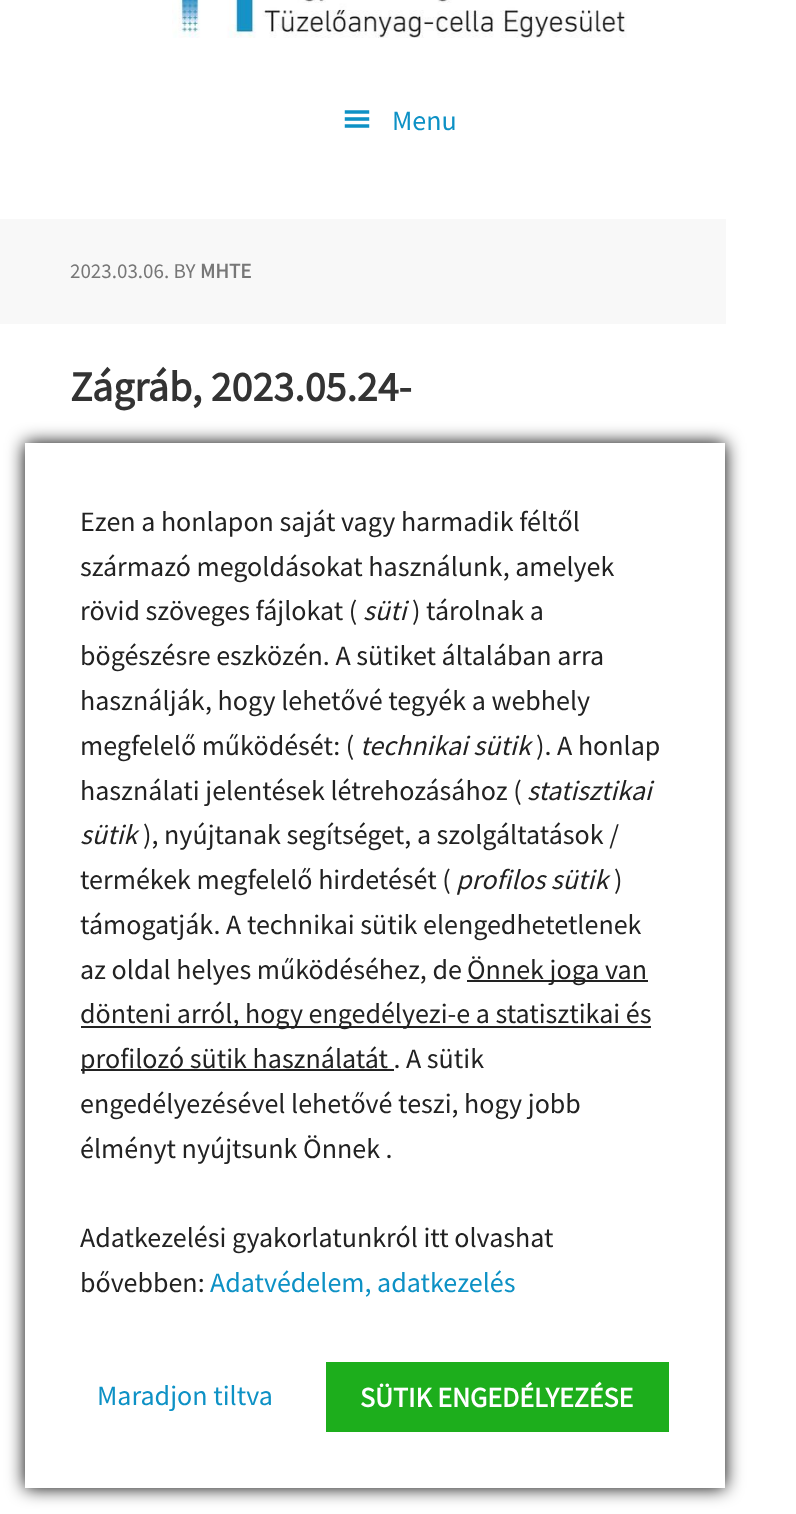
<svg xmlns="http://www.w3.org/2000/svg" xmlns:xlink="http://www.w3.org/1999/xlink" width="796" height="1514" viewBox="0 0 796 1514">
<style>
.cls-1{font:28px Source Sans Pro;fill:#0d91c5}
.cls-2{font:21px Source Sans Pro;fill:#777777}
.cls-3{font:bold 21px Source Sans Pro;fill:#777777}
.cls-4{font:bold 42px Source Sans Pro;fill:#333333}
.cls-5{font:28px Source Sans Pro;fill:#222222}
.cls-6{font:italic 28px Source Sans Pro;fill:#222222}
.cls-7{font:bold 28px Source Sans Pro;fill:#ffffff}
</style>
<rect width="100%" height="100%" fill="#ffffff"/>
<image xlink:href="image0.png" x="172" y="0" width="455" height="38"/>
<image xlink:href="image1.png" x="344" y="110" width="26" height="18"/>
<rect fill="#f8f8f8" x="0" y="219" width="726" height="105"/>
<rect fill="#000000" filter="blur(9px)" x="25" y="443" width="700" height="1045"/>
<rect fill="#ffffff" x="25" y="443" width="700" height="1045"/>
<rect fill="#222222" x="467" y="980" width="181" height="2"/>
<rect fill="#222222" x="81" y="1026" width="570" height="2"/>
<rect fill="#222222" x="81" y="1069" width="313" height="2"/>
<rect fill="#1dae1c" x="326" y="1362" width="343" height="70"/>
<text class="cls-1" x="392" y="130">Menu</text>
<text class="cls-2" x="70" y="278">2023.03.06. BY</text>
<text class="cls-3" x="200" y="278">MHTE</text>
<text class="cls-4" x="70" y="401">Zágráb, 2023.05.24-</text>
<text class="cls-5"><tspan x="80" y="531">Ezen a honlapon saját vagy harmadik féltől</tspan><tspan x="80" y="576">származó megoldásokat használunk, amelyek</tspan><tspan x="80" y="620">rövid szöveges fájlokat (</tspan></text>
<text class="cls-6" x="363" y="620">süti</text>
<text class="cls-5" x="412" y="620">) tárolnak a</text>
<text class="cls-5"><tspan x="80" y="665">bögészésre eszközén. A sütiket általában arra</tspan><tspan x="80" y="710">használják, hogy lehetővé tegyék a webhely</tspan><tspan x="80" y="755">megfelelő működését: (</tspan></text>
<text class="cls-6" x="360" y="755">technikai sütik</text>
<text class="cls-5" x="536" y="755">). A honlap</text>
<text class="cls-5" x="80" y="800">használati jelentések létrehozásához (</text>
<text class="cls-6" x="527" y="800">statisztikai</text>
<text class="cls-6" x="80" y="844">sütik</text>
<text class="cls-5" x="143" y="844">), nyújtanak segítséget, a szolgáltatások /</text>
<text class="cls-5" x="80" y="889">termékek megfelelő hirdetését (</text>
<text class="cls-6" x="456" y="889">profilos sütik</text>
<text class="cls-5" x="614" y="889">)</text>
<text class="cls-5"><tspan x="80" y="934">támogatják. A technikai sütik elengedhetetlenek</tspan><tspan x="80" y="979">az oldal helyes működéséhez, de</tspan></text>
<text class="cls-5" x="467" y="979">Önnek joga van</text>
<text class="cls-5"><tspan x="80" y="1023">dönteni arról, hogy engedélyezi-e a statisztikai és</tspan><tspan x="80" y="1068">profilozó sütik használatát . A sütik</tspan><tspan x="80" y="1113">engedélyezésével lehetővé teszi, hogy jobb</tspan><tspan x="80" y="1158">élményt nyújtsunk Önnek .</tspan></text>
<text class="cls-5"><tspan x="80" y="1247">Adatkezelési gyakorlatunkról itt olvashat</tspan><tspan x="80" y="1292">bővebben:</tspan></text>
<text class="cls-1" x="210" y="1292">Adatvédelem, adatkezelés</text>
<text class="cls-1" x="97" y="1405">Maradjon tiltva</text>
<text class="cls-7" x="360" y="1407">SÜTIK ENGEDÉLYEZÉSE</text>
</svg>
